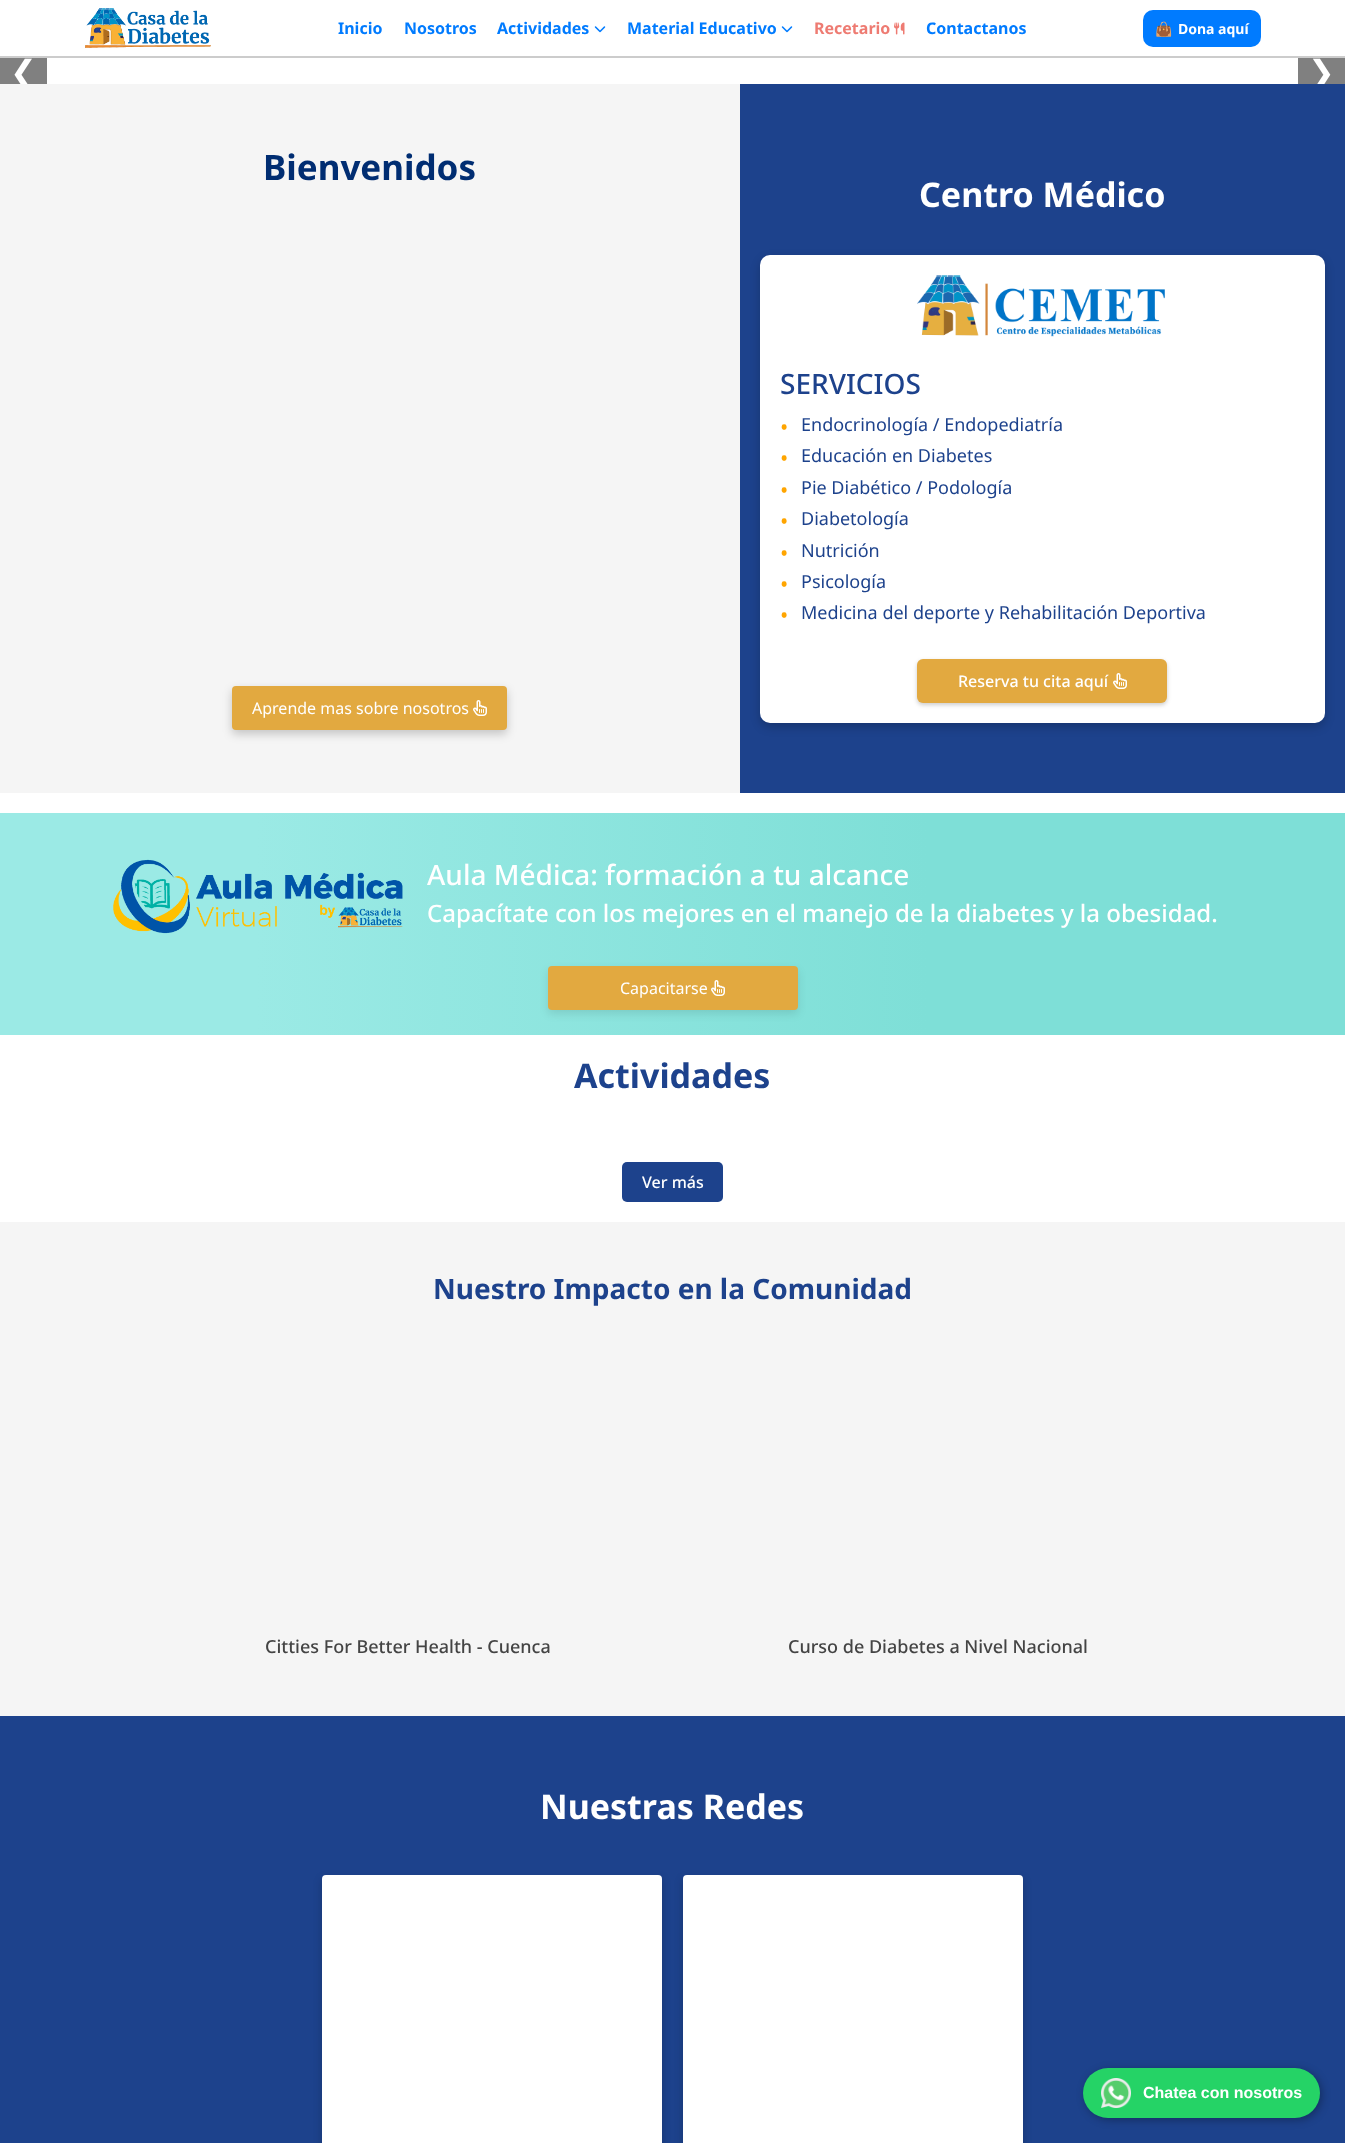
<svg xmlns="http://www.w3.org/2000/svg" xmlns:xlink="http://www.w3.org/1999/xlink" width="1345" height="2143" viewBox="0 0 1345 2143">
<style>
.cls-1{font:bold 16px Noto Sans;fill:#007bff}
.cls-2{font:bold 16px Noto Sans;fill:#ee7b72}
.cls-3{font:bold 14px Noto Color Emoji;fill:#ffffff}
.cls-4{font:bold 14px Noto Sans;fill:#ffffff}
.cls-5{font:32px DejaVu Sans;fill:#ffffff}
.cls-6{font:bold 35px Noto Sans;fill:#002d72}
.cls-7{font:16px Noto Sans;fill:#ffffff}
.cls-8{font:bold 34px Noto Sans;fill:#ffffff}
.cls-9{font:500 28px Noto Sans;fill:#1d428c}
.cls-10{font:22px Noto Sans;fill:#ffa500}
.cls-11{font:18px Noto Sans;fill:#1d428c}
.cls-12{font:500 16px Noto Sans;fill:#ffffff}
.cls-13{font:500 28px Noto Sans;fill:#ffffff}
.cls-14{font:500 24px Noto Sans;fill:#ffffff}
.cls-15{font:bold 34px Noto Sans;fill:#1d428c}
.cls-16{font:bold 28px Noto Sans;fill:#1d428c}
.cls-17{font:500 18px Noto Sans;fill:#444444}
.cls-18{font:bold 16px Liberation Sans;fill:#ffffff}
</style>
<defs>
<linearGradient id="g1" gradientUnits="userSpaceOnUse" x1="0" y1="924" x2="1345" y2="924"><stop offset="0.19" stop-color="#9beae5"/><stop offset="0.69" stop-color="#7edfd7"/></linearGradient>
<clipPath id="clip1"><rect x="0" y="58" width="1345" height="26"/></clipPath>
</defs>
<rect width="100%" height="100%" fill="#ffffff"/>
<rect fill="#cccccc" x="0" y="56" width="1345" height="2"/>
<image xlink:href="image0.png" x="85" y="8" width="126" height="40"/>
<image xlink:href="image1.png" x="594" y="26" width="12" height="7"/>
<image xlink:href="image1.png" x="781" y="26" width="12" height="7"/>
<image xlink:href="image2.png" x="894" y="22" width="11" height="13"/>
<rect fill="#007bff" x="1143" y="10" width="118" height="37" rx="10"/>
<rect fill="#808080" x="0" y="58" width="47" height="26"/>
<rect fill="#808080" x="1298" y="58" width="47" height="26"/>
<rect fill="#f5f5f5" x="0" y="84" width="740" height="709"/>
<rect fill="#000000" fill-opacity="0.2" filter="blur(5px)" x="232" y="690" width="275" height="44" rx="4"/>
<rect fill="#e2a940" x="232" y="686" width="275" height="44" rx="4"/>
<image xlink:href="image3.png" x="473" y="700" width="14" height="16"/>
<rect fill="#1d428c" x="740" y="84" width="605" height="709"/>
<rect fill="#000000" fill-opacity="0.2" filter="blur(5px)" x="760" y="259" width="565" height="468" rx="10"/>
<rect fill="#ffffff" x="760" y="255" width="565" height="468" rx="10"/>
<image xlink:href="image4.png" x="917" y="275" width="248" height="62"/>
<rect fill="#000000" fill-opacity="0.2" filter="blur(2px)" x="917" y="661" width="250" height="44" rx="6"/>
<rect fill="#e2a940" x="917" y="659" width="250" height="44" rx="6"/>
<image xlink:href="image3.png" x="1113" y="673" width="14" height="16"/>
<rect fill="url(#g1)" x="0" y="813" width="1345" height="222"/>
<image xlink:href="image5.png" x="113" y="859" width="290" height="75"/>
<rect fill="#000000" fill-opacity="0.1" filter="blur(4px)" x="548" y="970" width="250" height="44" rx="4"/>
<rect fill="#e2a940" x="548" y="966" width="250" height="44" rx="4"/>
<image xlink:href="image3.png" x="711" y="980" width="14" height="16"/>
<rect fill="#1d428c" x="622" y="1162" width="101" height="40" rx="5"/>
<rect fill="#f5f5f5" x="0" y="1222" width="1345" height="494"/>
<rect fill="#1d428c" x="0" y="1716" width="1345" height="427"/>
<rect fill="#000000" fill-opacity="0.2" filter="blur(4px)" x="322" y="1879" width="340" height="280" rx="4"/>
<rect fill="#ffffff" x="322" y="1875" width="340" height="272" rx="4"/>
<rect fill="#000000" fill-opacity="0.2" filter="blur(4px)" x="683" y="1879" width="340" height="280" rx="4"/>
<rect fill="#ffffff" x="683" y="1875" width="340" height="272" rx="4"/>
<rect fill="#000000" fill-opacity="0.3" filter="blur(4px)" x="1085" y="2070" width="237" height="50" rx="25"/>
<rect fill="#25d366" x="1083" y="2068" width="237" height="50" rx="25"/>
<image xlink:href="image6.png" x="1101" y="2078" width="30" height="30"/>
<text class="cls-1" x="338" y="34">Inicio</text>
<text class="cls-1" x="404" y="34">Nosotros</text>
<text class="cls-1" x="497" y="34">Actividades</text>
<text class="cls-1" x="627" y="34">Material Educativo</text>
<text class="cls-2" x="814" y="34">Recetario</text>
<text class="cls-1" x="926" y="34">Contactanos</text>
<text class="cls-3" x="1155" y="34">👜</text>
<text class="cls-4" x="1178" y="34">Dona aquí</text>
<g clip-path="url(#clip1)">
<text class="cls-5" x="10" y="83">❮</text>
<text class="cls-5" x="1308" y="83">❯</text>
</g>
<text class="cls-6" x="263" y="180">Bienvenidos</text>
<text class="cls-7" x="252" y="714">Aprende mas sobre nosotros</text>
<text class="cls-8" x="919" y="207">Centro Médico</text>
<text class="cls-9" x="780" y="394">SERVICIOS</text>
<text class="cls-10" x="780" y="435">•</text>
<text class="cls-11" x="801" y="431">Endocrinología / Endopediatría</text>
<text class="cls-10" x="780" y="466">•</text>
<text class="cls-11" x="801" y="462">Educación en Diabetes</text>
<text class="cls-10" x="780" y="498">•</text>
<text class="cls-11" x="801" y="494">Pie Diabético / Podología</text>
<text class="cls-10" x="780" y="529">•</text>
<text class="cls-11" x="801" y="525">Diabetología</text>
<text class="cls-10" x="780" y="561">•</text>
<text class="cls-11" x="801" y="557">Nutrición</text>
<text class="cls-10" x="780" y="592">•</text>
<text class="cls-11" x="801" y="588">Psicología</text>
<text class="cls-10" x="780" y="623">•</text>
<text class="cls-11" x="801" y="619">Medicina del deporte y Rehabilitación Deportiva</text>
<text class="cls-12" x="958" y="687">Reserva tu cita aquí</text>
<text class="cls-13" x="427" y="885">Aula Médica: formación a tu alcance</text>
<text class="cls-14" x="427" y="922">Capacítate con los mejores en el manejo de la diabetes y la obesidad.</text>
<text class="cls-7" x="620" y="994">Capacitarse</text>
<text class="cls-15" x="574" y="1088">Actividades</text>
<text class="cls-12" x="642" y="1188">Ver más</text>
<text class="cls-16" x="433" y="1299">Nuestro Impacto en la Comunidad</text>
<text class="cls-17" x="265" y="1653">Citties For Better Health - Cuenca</text>
<text class="cls-17" x="788" y="1653">Curso de Diabetes a Nivel Nacional</text>
<text class="cls-8" x="540" y="1819">Nuestras Redes</text>
<text class="cls-18" x="1143" y="2098">Chatea con nosotros</text>
</svg>
